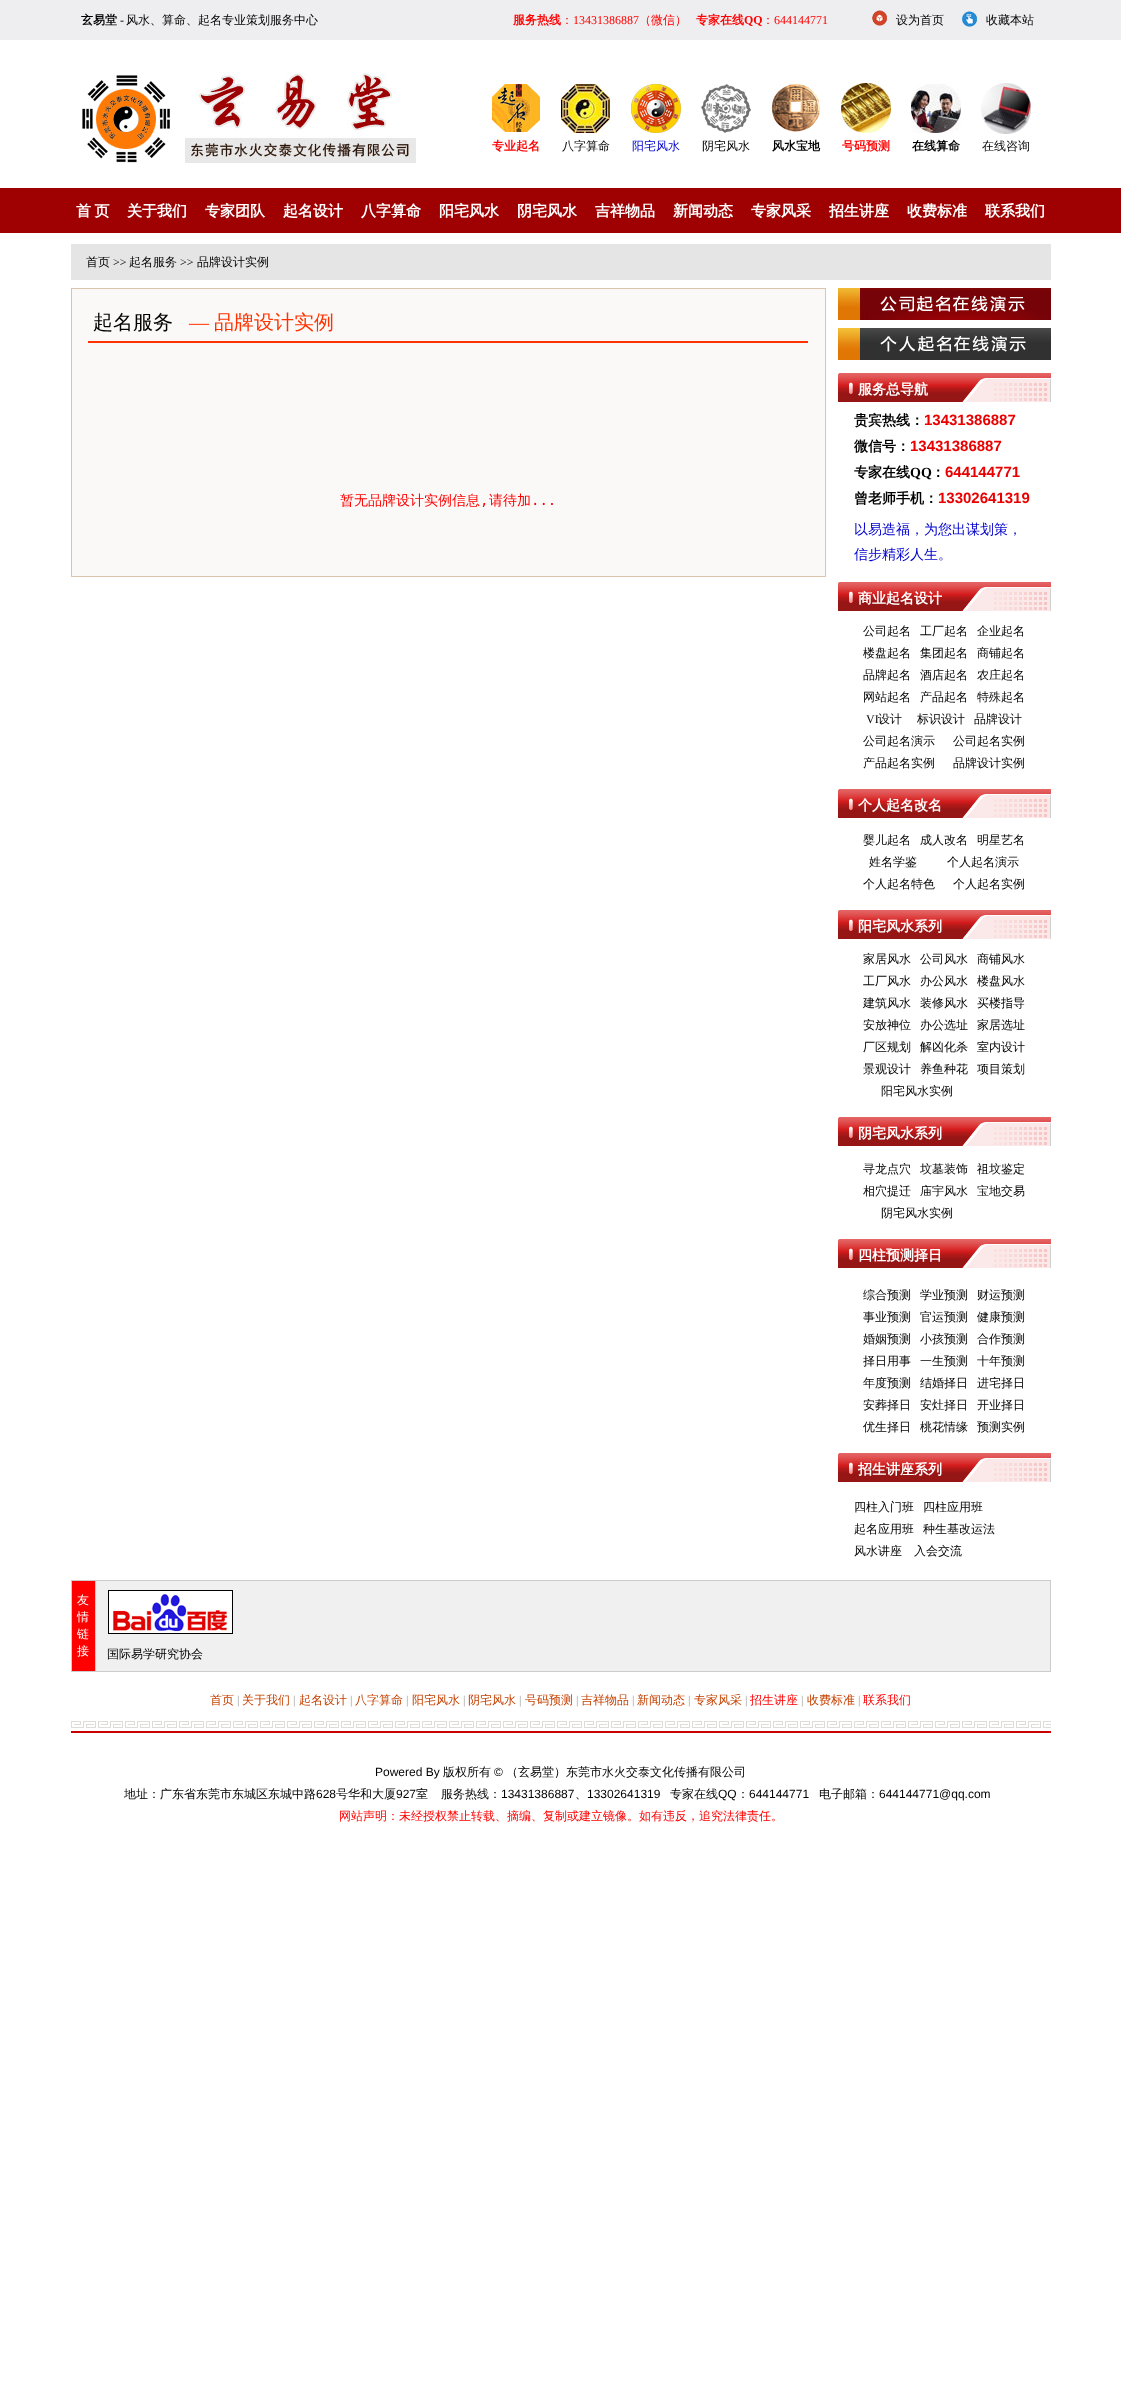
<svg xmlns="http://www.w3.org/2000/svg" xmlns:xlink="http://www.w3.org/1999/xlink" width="1121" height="2397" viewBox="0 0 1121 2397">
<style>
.cls-1{font:bold 12px WenQuanYi Zen Hei;fill:#000000}
.cls-2{font:12px Liberation Serif;fill:#000000}
.cls-3{font:500 12px WenQuanYi Zen Hei;fill:#000000}
.cls-4{font:bold 12px WenQuanYi Zen Hei;fill:#ff0000}
.cls-5{font:500 12px WenQuanYi Zen Hei;fill:#ff0000}
.cls-6{font:12px Liberation Serif;fill:#ff0000}
.cls-7{font:bold 12px Liberation Serif;fill:#ff0000}
.cls-8{font:500 12px WenQuanYi Zen Hei;fill:#0000cc}
.cls-9{font:bold 15px WenQuanYi Zen Hei;fill:#ffffff}
.cls-10{font:500 20px WenQuanYi Zen Hei;fill:#000000}
.cls-11{font:20px Liberation Serif;fill:#ff3300}
.cls-12{font:500 20px WenQuanYi Zen Hei;fill:#ff3300}
.cls-13{font:500 14px WenQuanYi Zen Hei;fill:#ff0000}
.cls-14{font:14px DejaVu Sans Mono;fill:#ff0000}
.cls-15{font:bold 14px WenQuanYi Zen Hei;fill:#ffffff}
.cls-16{font:bold 14px WenQuanYi Zen Hei;fill:#000000}
.cls-17{font:bold 15px Liberation Sans;fill:#ea0000}
.cls-18{font:bold 14px Liberation Serif;fill:#000000}
.cls-19{font:500 14px WenQuanYi Zen Hei;fill:#0000cc}
.cls-20{font:500 12px WenQuanYi Zen Hei;fill:#ffffff}
.cls-21{font:500 12px WenQuanYi Zen Hei;fill:#c44000}
.cls-22{font:12px Liberation Serif;fill:#999999}
.cls-23{font:12px Liberation Sans;fill:#000000}
</style>
<rect width="100%" height="100%" fill="#ffffff"/>
<rect fill="#eeedef" x="0" y="0" width="1121" height="40"/>
<image xlink:href="image0.png" x="872" y="10" width="15" height="16"/>
<image xlink:href="image1.png" x="962" y="11" width="15" height="16"/>
<image xlink:href="image2.png" x="82" y="75" width="88" height="88"/>
<image xlink:href="image3.png" x="185" y="72" width="231" height="91"/>
<image xlink:href="image4.png" x="492" y="84" width="48" height="48"/>
<image xlink:href="image5.png" x="561" y="84" width="49" height="49"/>
<image xlink:href="image6.png" x="631" y="84" width="50" height="49"/>
<image xlink:href="image7.png" x="701" y="84" width="50" height="49"/>
<image xlink:href="image8.png" x="771" y="84" width="49" height="48"/>
<image xlink:href="image9.png" x="841" y="83" width="50" height="50"/>
<image xlink:href="image10.png" x="911" y="84" width="50" height="49"/>
<image xlink:href="image11.png" x="981" y="83" width="50" height="51"/>
<rect fill="#9f0102" x="0" y="188" width="1121" height="45"/>
<rect fill="#e5e5e5" x="71" y="244" width="980" height="36"/>
<rect fill="#fbf9f7" stroke="#ddc4ad" x="71.5" y="288.5" width="754" height="288"/>
<rect fill="#ff3300" x="88" y="341" width="720" height="2"/>
<image xlink:href="image12.png" x="838" y="288" width="213" height="32"/>
<image xlink:href="image13.png" x="838" y="328" width="213" height="32"/>
<image xlink:href="image14.png" x="838" y="373" width="213" height="29"/>
<image xlink:href="image14.png" x="838" y="582" width="213" height="29"/>
<image xlink:href="image14.png" x="838" y="789" width="213" height="29"/>
<image xlink:href="image14.png" x="838" y="910" width="213" height="29"/>
<image xlink:href="image14.png" x="838" y="1117" width="213" height="29"/>
<image xlink:href="image14.png" x="838" y="1239" width="213" height="29"/>
<image xlink:href="image14.png" x="838" y="1453" width="213" height="29"/>
<rect fill="#cccccc" x="71" y="1580" width="980" height="92"/>
<rect fill="#ff0000" x="72" y="1581" width="23" height="90"/>
<rect fill="#f0f0f0" x="96" y="1581" width="954" height="90"/>
<image xlink:href="image15.png" x="108" y="1590" width="125" height="44"/>
<image xlink:href="image16.png" x="71" y="1721" width="980" height="12"/>
<text class="cls-1" x="81" y="24">玄易堂</text>
<text class="cls-2" x="120" y="24">-</text>
<text class="cls-3" x="126" y="24">风水、算命、起名专业策划服务中心</text>
<text class="cls-4" x="513" y="24">服务热线</text>
<text class="cls-5" x="561" y="24">：</text>
<text class="cls-6" x="573" y="24">13431386887</text>
<text class="cls-5" x="639" y="24">（微信）</text>
<text class="cls-4" x="696" y="24">专家在线</text>
<text class="cls-7" x="744" y="24">QQ</text>
<text class="cls-5" x="762" y="24">：</text>
<text class="cls-6" x="774" y="24">644144771</text>
<text class="cls-3" x="896" y="24">设为首页</text>
<text class="cls-3" x="986" y="24">收藏本站</text>
<text class="cls-4" x="492" y="150">专业起名</text>
<text class="cls-3" x="562" y="150">八字算命</text>
<text class="cls-8" x="632" y="150">阳宅风水</text>
<text class="cls-3" x="702" y="150">阴宅风水</text>
<text class="cls-1" x="772" y="150">风水宝地</text>
<text class="cls-4" x="842" y="150">号码预测</text>
<text class="cls-1" x="912" y="150">在线算命</text>
<text class="cls-3" x="982" y="150">在线咨询</text>
<text class="cls-9" x="76" y="216" word-spacing="-1">首 页</text>
<text class="cls-9" x="127" y="216">关于我们</text>
<text class="cls-9" x="205" y="216">专家团队</text>
<text class="cls-9" x="283" y="216">起名设计</text>
<text class="cls-9" x="361" y="216">八字算命</text>
<text class="cls-9" x="439" y="216">阳宅风水</text>
<text class="cls-9" x="517" y="216">阴宅风水</text>
<text class="cls-9" x="595" y="216">吉祥物品</text>
<text class="cls-9" x="673" y="216">新闻动态</text>
<text class="cls-9" x="751" y="216">专家风采</text>
<text class="cls-9" x="829" y="216">招生讲座</text>
<text class="cls-9" x="907" y="216">收费标准</text>
<text class="cls-9" x="985" y="216">联系我们</text>
<text class="cls-3" x="86" y="266">首页</text>
<text class="cls-2" x="113" y="266">&gt;&gt;</text>
<text class="cls-3" x="129" y="266">起名服务</text>
<text class="cls-2" x="180" y="266">&gt;&gt;</text>
<text class="cls-3" x="197" y="266">品牌设计实例</text>
<text class="cls-10" x="93" y="329">起名服务</text>
<text class="cls-11" x="189" y="329">—</text>
<text class="cls-12" x="214" y="329">品牌设计实例</text>
<text class="cls-13" x="340" y="505">暂无品牌设计实例信息</text>
<text class="cls-14" x="480" y="505">,</text>
<text class="cls-13" x="489" y="505">请待加</text>
<text class="cls-14" x="531" y="505">...</text>
<text class="cls-15" x="858" y="394">服务总导航</text>
<text class="cls-16" x="854" y="425">贵宾热线：</text>
<text class="cls-17" x="924" y="425">13431386887</text>
<text class="cls-16" x="854" y="451">微信号：</text>
<text class="cls-17" x="910" y="451">13431386887</text>
<text class="cls-16" x="854" y="477">专家在线</text>
<text class="cls-18" x="910" y="477">QQ</text>
<text class="cls-16" x="931" y="477">：</text>
<text class="cls-17" x="945" y="477">644144771</text>
<text class="cls-16" x="854" y="503">曾老师手机：</text>
<text class="cls-17" x="938" y="503">13302641319</text>
<text class="cls-19"><tspan x="854" y="534">以易造福，为您出谋划策，</tspan><tspan x="854" y="559">信步精彩人生。</tspan></text>
<text class="cls-15" x="858" y="603">商业起名设计</text>
<text class="cls-3" x="863" y="635">公司起名</text>
<text class="cls-3" x="920" y="635">工厂起名</text>
<text class="cls-3" x="977" y="635">企业起名</text>
<text class="cls-3" x="863" y="657">楼盘起名</text>
<text class="cls-3" x="920" y="657">集团起名</text>
<text class="cls-3" x="977" y="657">商铺起名</text>
<text class="cls-3" x="863" y="679">品牌起名</text>
<text class="cls-3" x="920" y="679">酒店起名</text>
<text class="cls-3" x="977" y="679">农庄起名</text>
<text class="cls-3" x="863" y="701">网站起名</text>
<text class="cls-3" x="920" y="701">产品起名</text>
<text class="cls-3" x="977" y="701">特殊起名</text>
<text class="cls-2" x="866" y="723">VI</text>
<text class="cls-3" x="878" y="723">设计</text>
<text class="cls-3" x="917" y="723">标识设计</text>
<text class="cls-3" x="974" y="723">品牌设计</text>
<text class="cls-3" x="863" y="745">公司起名演示</text>
<text class="cls-3" x="953" y="745">公司起名实例</text>
<text class="cls-3" x="863" y="767">产品起名实例</text>
<text class="cls-3" x="953" y="767">品牌设计实例</text>
<text class="cls-15" x="858" y="810">个人起名改名</text>
<text class="cls-3" x="863" y="844">婴儿起名</text>
<text class="cls-3" x="920" y="844">成人改名</text>
<text class="cls-3" x="977" y="844">明星艺名</text>
<text class="cls-3" x="869" y="866">姓名学鉴</text>
<text class="cls-3" x="947" y="866">个人起名演示</text>
<text class="cls-3" x="863" y="888">个人起名特色</text>
<text class="cls-3" x="953" y="888">个人起名实例</text>
<text class="cls-15" x="858" y="931">阳宅风水系列</text>
<text class="cls-3" x="863" y="963">家居风水</text>
<text class="cls-3" x="920" y="963">公司风水</text>
<text class="cls-3" x="977" y="963">商铺风水</text>
<text class="cls-3" x="863" y="985">工厂风水</text>
<text class="cls-3" x="920" y="985">办公风水</text>
<text class="cls-3" x="977" y="985">楼盘风水</text>
<text class="cls-3" x="863" y="1007">建筑风水</text>
<text class="cls-3" x="920" y="1007">装修风水</text>
<text class="cls-3" x="977" y="1007">买楼指导</text>
<text class="cls-3" x="863" y="1029">安放神位</text>
<text class="cls-3" x="920" y="1029">办公选址</text>
<text class="cls-3" x="977" y="1029">家居选址</text>
<text class="cls-3" x="863" y="1051">厂区规划</text>
<text class="cls-3" x="920" y="1051">解凶化杀</text>
<text class="cls-3" x="977" y="1051">室内设计</text>
<text class="cls-3" x="863" y="1073">景观设计</text>
<text class="cls-3" x="920" y="1073">养鱼种花</text>
<text class="cls-3" x="977" y="1073">项目策划</text>
<text class="cls-3" x="881" y="1095">阳宅风水实例</text>
<text class="cls-15" x="858" y="1138">阴宅风水系列</text>
<text class="cls-3" x="863" y="1173">寻龙点穴</text>
<text class="cls-3" x="920" y="1173">坟墓装饰</text>
<text class="cls-3" x="977" y="1173">祖坟鉴定</text>
<text class="cls-3" x="863" y="1195">相穴提迁</text>
<text class="cls-3" x="920" y="1195">庙宇风水</text>
<text class="cls-3" x="977" y="1195">宝地交易</text>
<text class="cls-3" x="881" y="1217">阴宅风水实例</text>
<text class="cls-15" x="858" y="1260">四柱预测择日</text>
<text class="cls-3" x="863" y="1299">综合预测</text>
<text class="cls-3" x="920" y="1299">学业预测</text>
<text class="cls-3" x="977" y="1299">财运预测</text>
<text class="cls-3" x="863" y="1321">事业预测</text>
<text class="cls-3" x="920" y="1321">官运预测</text>
<text class="cls-3" x="977" y="1321">健康预测</text>
<text class="cls-3" x="863" y="1343">婚姻预测</text>
<text class="cls-3" x="920" y="1343">小孩预测</text>
<text class="cls-3" x="977" y="1343">合作预测</text>
<text class="cls-3" x="863" y="1365">择日用事</text>
<text class="cls-3" x="920" y="1365">一生预测</text>
<text class="cls-3" x="977" y="1365">十年预测</text>
<text class="cls-3" x="863" y="1387">年度预测</text>
<text class="cls-3" x="920" y="1387">结婚择日</text>
<text class="cls-3" x="977" y="1387">进宅择日</text>
<text class="cls-3" x="863" y="1409">安葬择日</text>
<text class="cls-3" x="920" y="1409">安灶择日</text>
<text class="cls-3" x="977" y="1409">开业择日</text>
<text class="cls-3" x="863" y="1431">优生择日</text>
<text class="cls-3" x="920" y="1431">桃花情缘</text>
<text class="cls-3" x="977" y="1431">预测实例</text>
<text class="cls-15" x="858" y="1474">招生讲座系列</text>
<text class="cls-3" x="854" y="1511">四柱入门班</text>
<text class="cls-3" x="923" y="1511">四柱应用班</text>
<text class="cls-3" x="854" y="1533">起名应用班</text>
<text class="cls-3" x="923" y="1533">种生基改运法</text>
<text class="cls-3" x="854" y="1555">风水讲座</text>
<text class="cls-3" x="914" y="1555">入会交流</text>
<text class="cls-20"><tspan x="77" y="1604">友</tspan><tspan x="77" y="1621">情</tspan><tspan x="77" y="1638">链</tspan><tspan x="77" y="1655">接</tspan></text>
<text class="cls-3" x="107" y="1658">国际易学研究协会</text>
<text class="cls-21" x="210" y="1704">首页</text>
<text class="cls-22" x="237" y="1704">|</text>
<text class="cls-21" x="242" y="1704">关于我们</text>
<text class="cls-22" x="293" y="1704">|</text>
<text class="cls-21" x="299" y="1704">起名设计</text>
<text class="cls-22" x="350" y="1704">|</text>
<text class="cls-21" x="355" y="1704">八字算命</text>
<text class="cls-22" x="406" y="1704">|</text>
<text class="cls-21" x="412" y="1704">阳宅风水</text>
<text class="cls-22" x="463" y="1704">|</text>
<text class="cls-21" x="468" y="1704">阴宅风水</text>
<text class="cls-22" x="519" y="1704">|</text>
<text class="cls-21" x="525" y="1704">号码预测</text>
<text class="cls-22" x="576" y="1704">|</text>
<text class="cls-21" x="581" y="1704">吉祥物品</text>
<text class="cls-22" x="632" y="1704">|</text>
<text class="cls-21" x="637" y="1704">新闻动态</text>
<text class="cls-22" x="688" y="1704">|</text>
<text class="cls-21" x="694" y="1704">专家风采</text>
<text class="cls-22" x="745" y="1704">|</text>
<text class="cls-5" x="750" y="1704">招生讲座</text>
<text class="cls-22" x="801" y="1704">|</text>
<text class="cls-21" x="807" y="1704">收费标准</text>
<text class="cls-22" x="858" y="1704">|</text>
<text class="cls-5" x="863" y="1704">联系我们</text>
<text class="cls-23" x="375" y="1776">Powered By</text>
<text class="cls-3" x="443" y="1776">版权所有</text>
<text class="cls-23" x="494" y="1776">©</text>
<text class="cls-3" x="506" y="1776">（玄易堂）东莞市水火交泰文化传播有限公司</text>
<text class="cls-3" x="124" y="1798">地址：广东省东莞市东城区东城中路</text>
<text class="cls-23" x="316" y="1798">628</text>
<text class="cls-3" x="336" y="1798">号华和大厦</text>
<text class="cls-23" x="396" y="1798">927</text>
<text class="cls-3" x="416" y="1798">室</text>
<text class="cls-3" x="441" y="1798">服务热线：</text>
<text class="cls-23" x="501" y="1798">13431386887</text>
<text class="cls-23" x="587" y="1798">13302641319</text>
<text class="cls-3" x="670" y="1798">专家在线</text>
<text class="cls-23" x="718" y="1798">QQ</text>
<text class="cls-3" x="737" y="1798">：</text>
<text class="cls-23" x="749" y="1798">644144771</text>
<text class="cls-3" x="819" y="1798">电子邮箱：</text>
<text class="cls-23" x="879" y="1798">644144771@qq.com</text>
<text class="cls-3" x="575" y="1798">、</text>
<text class="cls-5" x="339" y="1820">网站声明：未经授权禁止转载、摘编、复制或建立镜像。如有违反，追究法律责任。</text>
</svg>
